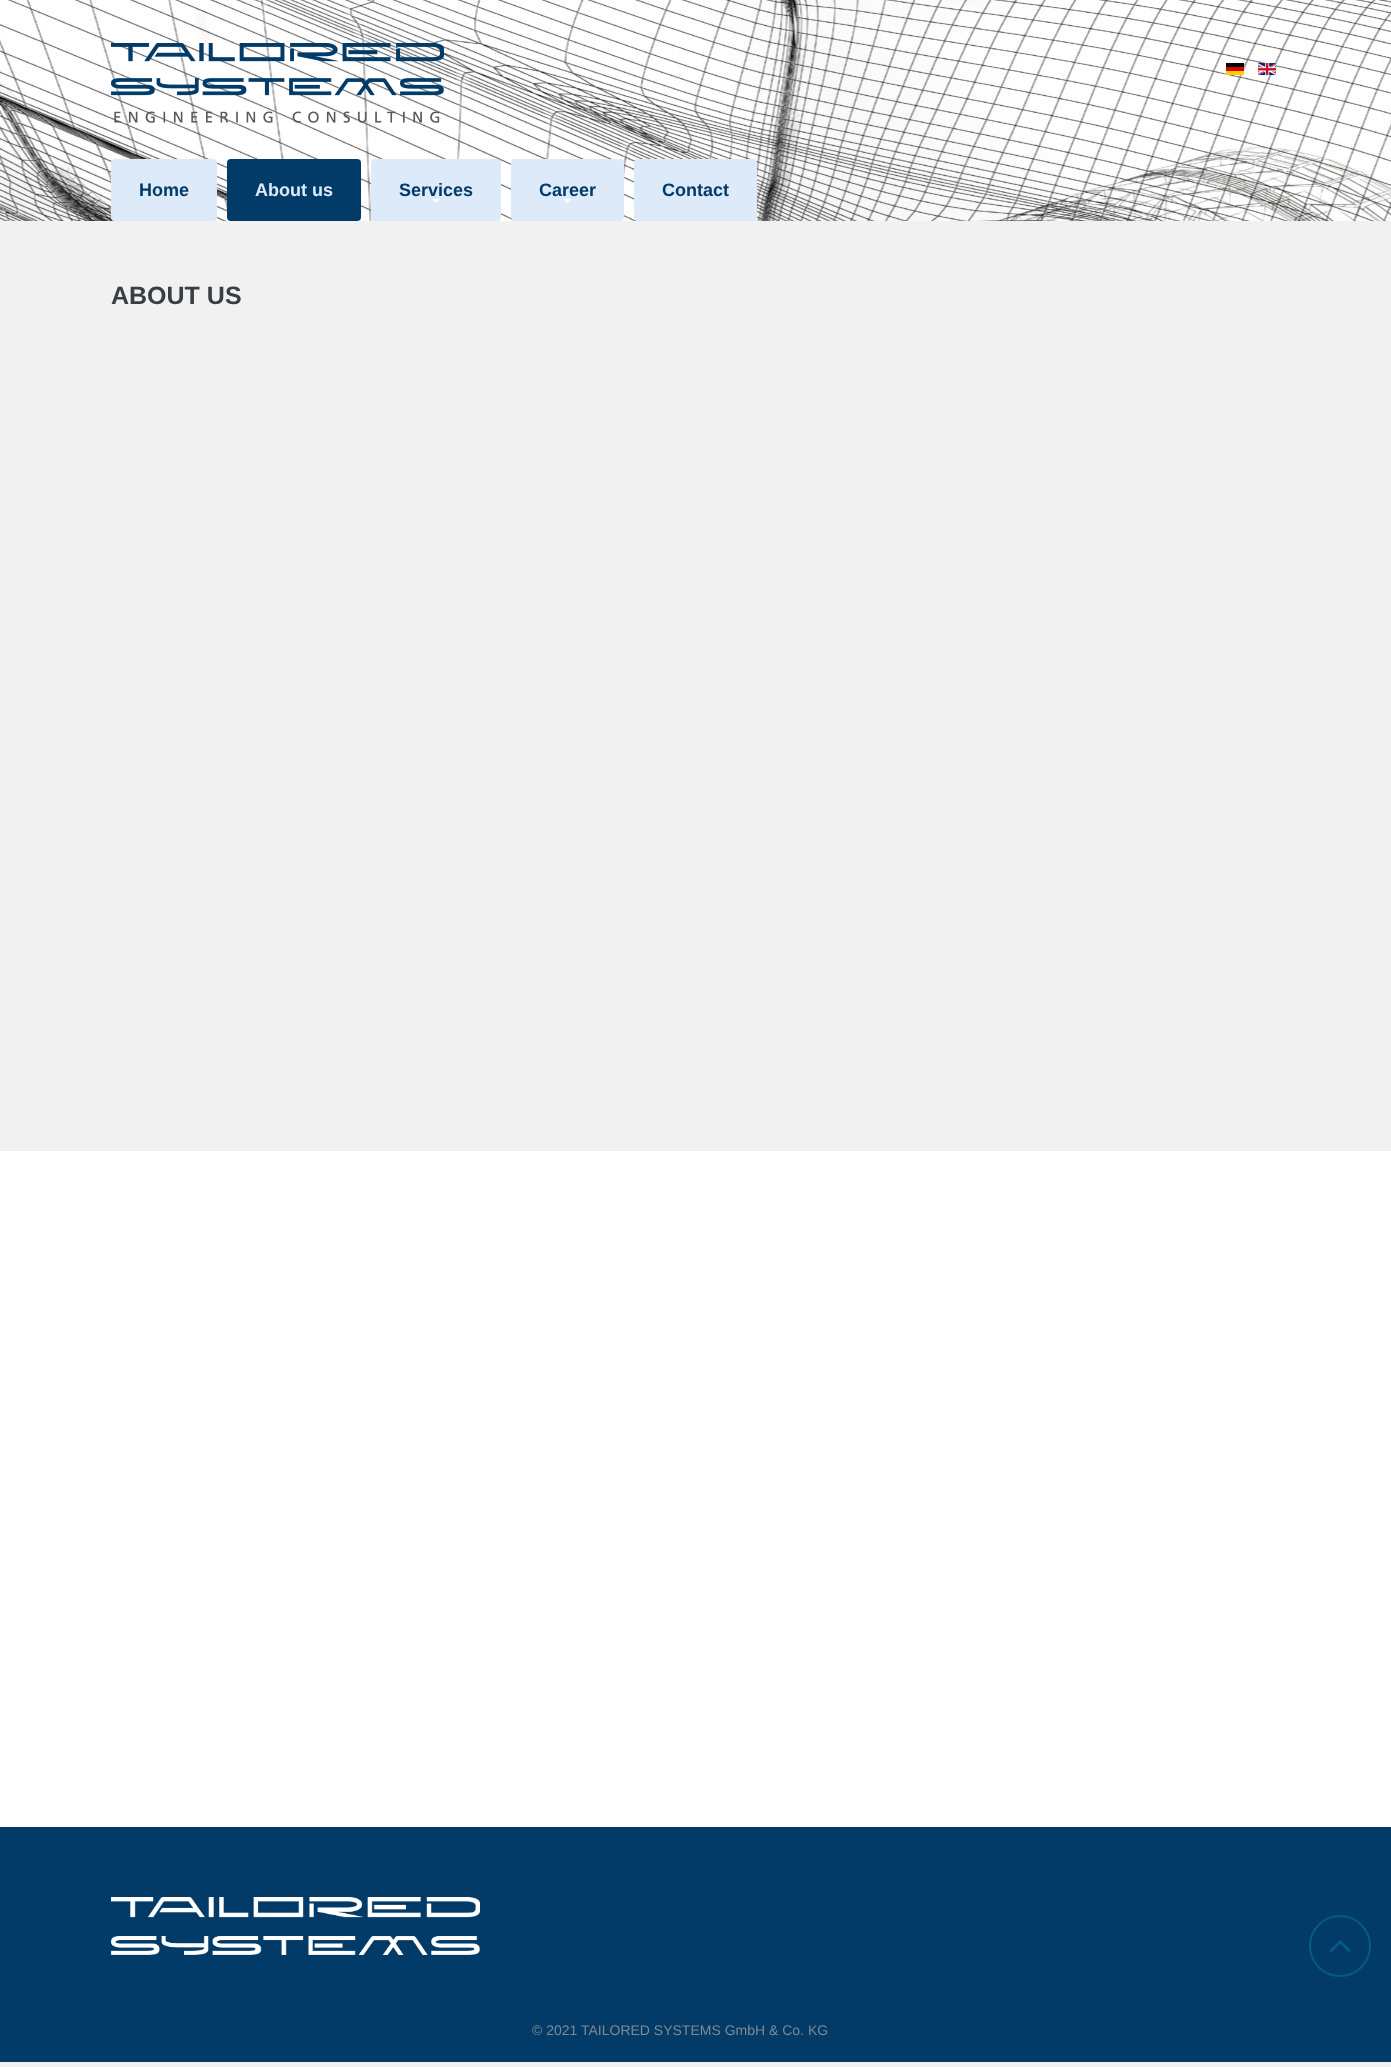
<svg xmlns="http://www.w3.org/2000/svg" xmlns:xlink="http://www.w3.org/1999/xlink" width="1391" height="2067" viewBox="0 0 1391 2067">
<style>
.cls-1{font:bold 18px Liberation Sans;fill:#023b68}
.cls-2{font:bold 18px Liberation Sans;fill:#dceaf9}
.cls-3{font:bold 25px Liberation Sans;fill:#363f45}
.cls-4{font:14px Liberation Sans;fill:#7f8a91}
</style>
<rect width="100%" height="100%" fill="#ffffff"/>
<image xlink:href="image0.png" x="0" y="0" width="1391" height="221"/>
<image xlink:href="image1.png" x="111" y="43" width="333" height="80"/>
<image xlink:href="image2.png" x="1226" y="63" width="18" height="12"/>
<image xlink:href="image3.png" x="1258" y="63" width="18" height="12"/>
<rect fill="#dceaf9" x="111" y="159" width="106" height="62" rx="4"/>
<rect fill="#023b68" x="227" y="159" width="134" height="62" rx="4"/>
<rect fill="#dceaf9" x="371" y="159" width="130" height="62" rx="4"/>
<path fill="#ffffff" d="M432 199H440L436 203Z"/>
<rect fill="#dceaf9" x="511" y="159" width="113" height="62" rx="4"/>
<path fill="#ffffff" d="M563 199H571L567 203Z"/>
<rect fill="#dceaf9" x="634" y="159" width="123" height="62" rx="4"/>
<rect fill="#f1f1f1" x="0" y="221" width="1391" height="930"/>
<rect fill="#023b68" x="0" y="1827" width="1391" height="235"/>
<circle fill="none" stroke="#085988" stroke-width="2" cx="1340" cy="1946" r="30"/>
<image xlink:href="image4.png" x="1329" y="1940" width="22" height="13"/>
<rect fill="#f1f1f1" x="0" y="2062" width="1391" height="5"/>
<image xlink:href="image5.png" x="111" y="1897" width="369" height="58"/>
<text class="cls-1" x="139" y="196">Home</text>
<text class="cls-2" x="255" y="196">About us</text>
<text class="cls-1" x="399" y="196">Services</text>
<text class="cls-1" x="539" y="196">Career</text>
<text class="cls-1" x="662" y="196">Contact</text>
<text class="cls-3" x="111" y="304">ABOUT US</text>
<text class="cls-4" x="532" y="2035">© 2021 TAILORED SYSTEMS GmbH &amp; Co. KG</text>
</svg>
